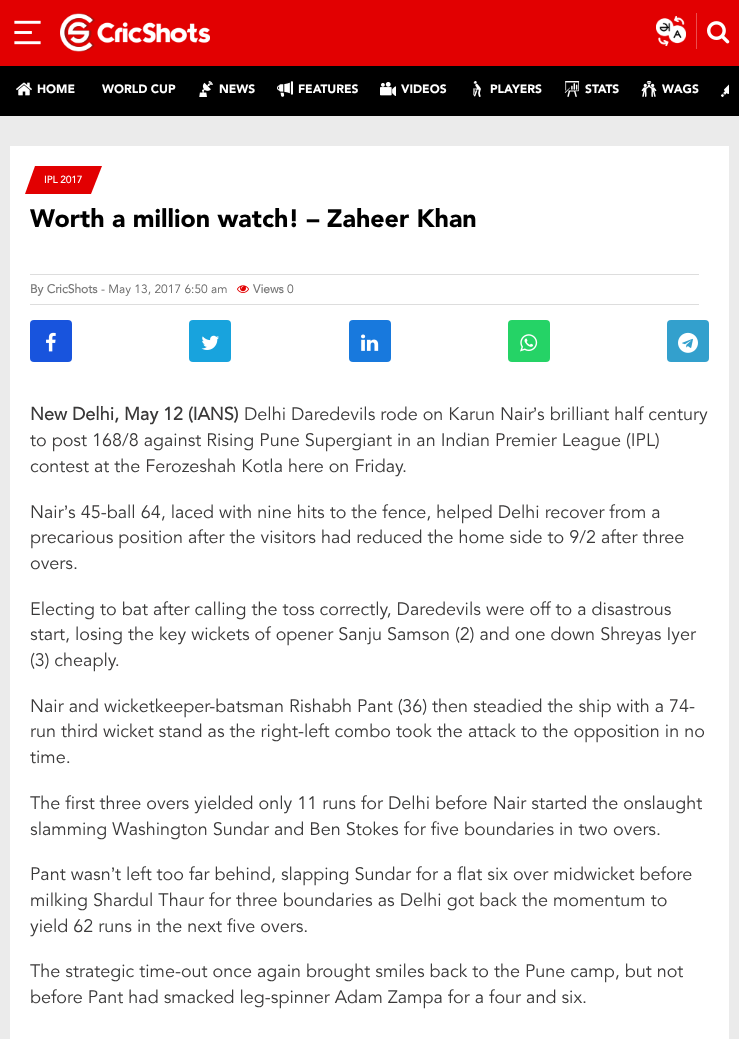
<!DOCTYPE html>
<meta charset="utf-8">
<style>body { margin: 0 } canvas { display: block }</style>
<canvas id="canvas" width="739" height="1039"></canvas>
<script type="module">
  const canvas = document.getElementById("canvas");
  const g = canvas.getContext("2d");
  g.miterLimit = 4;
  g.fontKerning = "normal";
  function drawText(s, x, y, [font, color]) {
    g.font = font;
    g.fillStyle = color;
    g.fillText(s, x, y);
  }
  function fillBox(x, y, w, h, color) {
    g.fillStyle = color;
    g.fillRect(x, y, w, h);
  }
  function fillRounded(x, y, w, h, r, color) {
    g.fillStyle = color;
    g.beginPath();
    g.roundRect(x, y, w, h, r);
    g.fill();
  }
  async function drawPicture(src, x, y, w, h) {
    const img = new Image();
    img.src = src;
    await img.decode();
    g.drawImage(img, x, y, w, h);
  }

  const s1 = ["900 12px Avenir", "#FFFFFF"];
  const s2 = ["bold 10px Avenir", "#FFFFFF"];
  const s3 = ["900 25px Avenir", "#000000"];
  const s4 = ["bold 12px Avenir", "#797979"];
  const s5 = ["12px Avenir", "#636363"];
  const s6 = ["bold 18px Avenir", "#3A3939"];
  const s7 = ["18px Avenir", "#3A3939"];
  const s8 = ["18px Liberation Sans", "#3A3939"];

  fillBox(0, 0, 739, 1039, "#EBEBEB");
  fillBox(0, 0, 739, 66, "#E20001");
  await drawPicture("pic1.png", 14, 20, 27, 25);
  await drawPicture("pic2.png", 60, 13, 150, 39);
  fillBox(696, 13, 1, 36, "#EB4D4D");
  await drawPicture("pic3.png", 656, 16, 30, 30);
  await drawPicture("pic4.png", 707, 21, 23, 23);
  fillBox(0, 66, 739, 50, "#000000");
  await drawPicture("pic5.png", 16, 82, 16, 14);
  drawText("HOME", 37, 93, s1);
  drawText("WORLD CUP", 102, 93, s1);
  await drawPicture("pic6.png", 199, 81, 14, 16);
  drawText("NEWS", 219, 93, s1);
  await drawPicture("pic7.png", 277, 81, 16, 16);
  drawText("FEATURES", 298, 93, s1);
  await drawPicture("pic8.png", 380, 82, 16, 14);
  drawText("VIDEOS", 401, 93, s1);
  await drawPicture("pic9.png", 473, 81, 8, 16);
  drawText("PLAYERS", 490, 93, s1);
  await drawPicture("pic10.png", 564, 81, 16, 16);
  drawText("STATS", 585, 93, s1);
  await drawPicture("pic11.png", 641, 81, 16, 16);
  drawText("WAGS", 662, 93, s1);
  await drawPicture("pic12.png", 721, 84, 8, 13);
  fillBox(10, 146, 719, 893, "#FFFFFF");
  g.fillStyle = "#E20001";
  g.beginPath();
  g.moveTo(35, 166);
  g.lineTo(102, 166);
  g.lineTo(91, 194);
  g.lineTo(25, 194);
  g.closePath();
  g.fill();
  drawText("IPL 2017", 44, 183, s2);
  drawText("Worth a million watch! – Zaheer Khan", 30, 227, s3);
  fillBox(30, 274, 669, 1, "#DDDDDD");
  fillBox(30, 304, 669, 1, "#DDDDDD");
  drawText("By CricShots", 30, 293, s4);
  drawText("- May 13, 2017 6:50 am", 101, 293, s5);
  await drawPicture("pic13.png", 237, 285, 12, 8);
  drawText("Views", 253, 293, s4);
  drawText("0", 287, 293, s5);
  fillRounded(30, 320, 42, 42, 4, "#1854DD");
  await drawPicture("pic14.png", 46, 332, 10, 20);
  fillRounded(189, 320, 42, 42, 4, "#18A3DD");
  await drawPicture("pic15.png", 201, 335, 18, 15);
  fillRounded(349, 320, 42, 42, 4, "#1879DD");
  await drawPicture("pic16.png", 361, 334, 18, 17);
  fillRounded(508, 320, 42, 42, 4, "#25D366");
  await drawPicture("pic17.png", 520, 334, 18, 18);
  fillRounded(667, 320, 42, 42, 4, "#33A0CD");
  await drawPicture("pic18.png", 678, 332, 20, 21);
  drawText("New Delhi, May 12 (IANS)", 30, 420, s6);
  drawText("Delhi Daredevils rode on Karun Nair", 244, 420, s7);
  drawText("’", 533, 420, s8);
  drawText("s brilliant half century", 537, 420, s7);
  drawText("to post 168/8 against Rising Pune Supergiant in an Indian Premier League (IPL)", 30, 446, s7);
  drawText("contest at the Ferozeshah Kotla here on Friday.", 30, 472, s7);
  drawText("Nair", 30, 518, s7);
  drawText("’", 64, 518, s8);
  drawText("s 45-ball 64, laced with nine hits to the fence, helped Delhi recover from a", 68, 518, s7);
  drawText("precarious position after the visitors had reduced the home side to 9/2 after three", 30, 543, s7);
  drawText("overs.", 30, 569, s7);
  drawText("Electing to bat after calling the toss correctly, Daredevils were off to a disastrous", 30, 615, s7);
  drawText("start, losing the key wickets of opener Sanju Samson (2) and one down Shreyas Iyer", 30, 640, s7);
  drawText("(3) cheaply.", 30, 666, s7);
  drawText("Nair and wicketkeeper-batsman Rishabh Pant (36) then steadied the ship with a 74-", 30, 712, s7);
  drawText("run third wicket stand as the right-left combo took the attack to the opposition in no", 30, 737, s7);
  drawText("time.", 30, 763, s7);
  drawText("The first three overs yielded only 11 runs for Delhi before Nair started the onslaught", 30, 809, s7);
  drawText("slamming Washington Sundar and Ben Stokes for five boundaries in two overs.", 30, 835, s7);
  drawText("Pant wasn", 30, 880, s7);
  drawText("’", 111, 880, s8);
  drawText("t left too far behind, slapping Sundar for a flat six over midwicket before", 115, 880, s7);
  drawText("milking Shardul Thaur for three boundaries as Delhi got back the momentum to", 30, 906, s7);
  drawText("yield 62 runs in the next five overs.", 30, 932, s7);
  drawText("The strategic time-out once again brought smiles back to the Pune camp, but not", 30, 977, s7);
  drawText("before Pant had smacked leg-spinner Adam Zampa for a four and six.", 30, 1003, s7);
</script>
